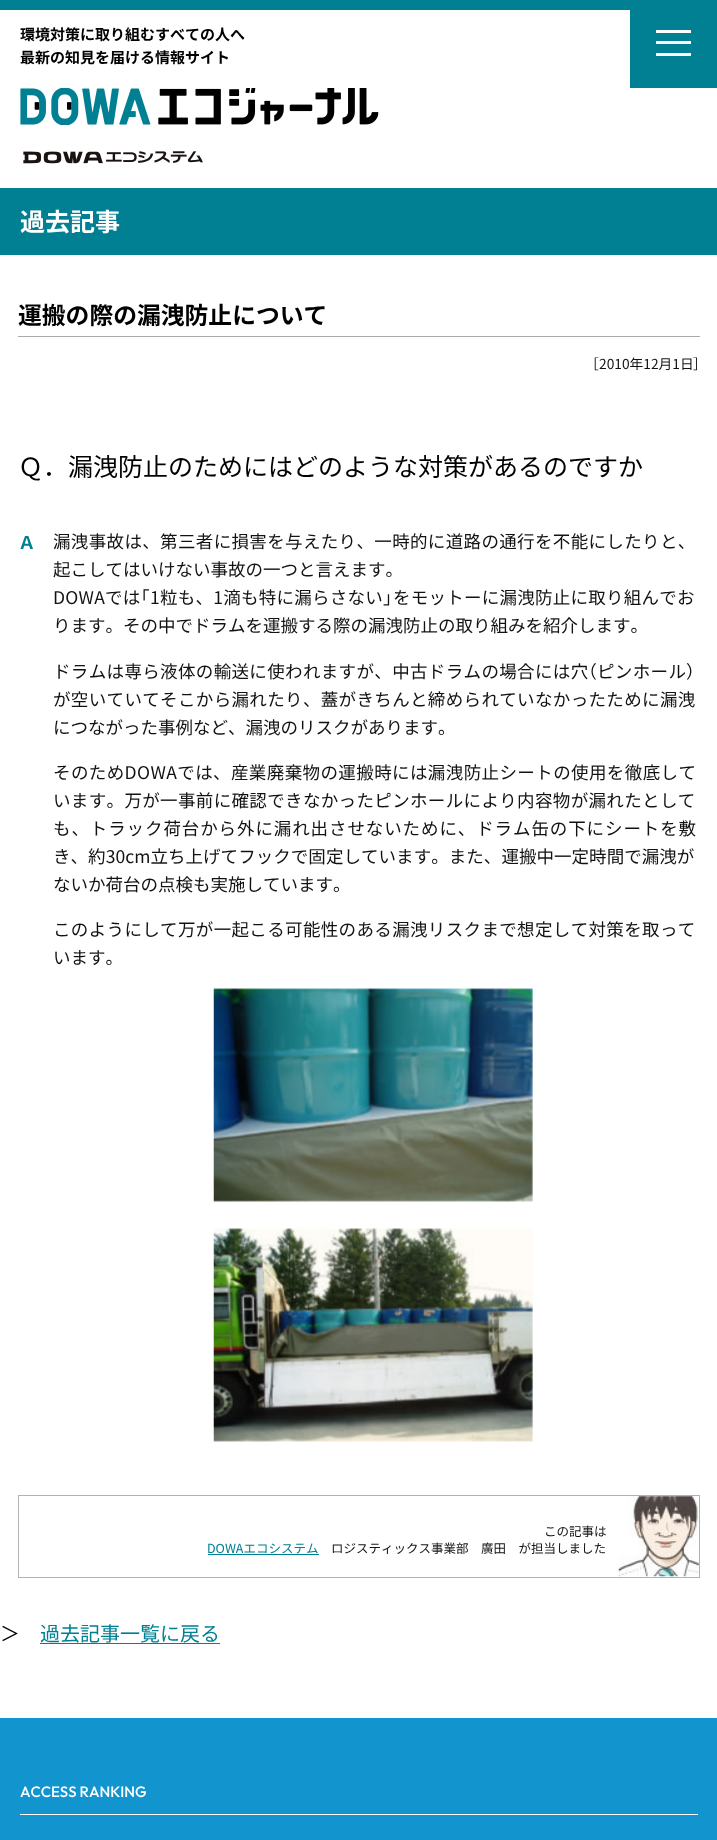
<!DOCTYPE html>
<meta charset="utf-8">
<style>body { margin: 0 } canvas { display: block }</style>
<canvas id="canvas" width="717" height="1840"></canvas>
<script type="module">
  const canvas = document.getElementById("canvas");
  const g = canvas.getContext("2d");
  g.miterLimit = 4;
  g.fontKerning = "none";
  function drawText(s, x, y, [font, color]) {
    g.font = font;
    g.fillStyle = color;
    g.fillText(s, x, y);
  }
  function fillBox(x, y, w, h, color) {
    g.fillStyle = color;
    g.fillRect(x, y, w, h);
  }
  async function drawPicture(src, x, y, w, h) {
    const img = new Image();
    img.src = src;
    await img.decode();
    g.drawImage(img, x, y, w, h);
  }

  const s1 = ["bold 15px Noto Sans JP", "#000000"];
  const s2 = ["bold 25px Noto Sans JP", "#FFFFFF"];
  const s3 = ["bold 23.8px Noto Sans JP", "#000000"];
  const s4 = ["13.75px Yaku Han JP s", "#121212"];
  const s5 = ["13.75px Noto Sans JP", "#121212"];
  const s6 = ["25px Noto Sans JP", "#000000"];
  const s7 = ["bold 17.5px Noto Sans JP", "#008092"];
  const s8 = ["17.5px Noto Sans JP", "#121212"];
  const s9 = ["17.5px Yaku Han JP s", "#121212"];
  const s10 = ["12.5px Noto Sans JP", "#121212"];
  const s11 = ["12.5px Noto Sans JP", "#008092"];
  const s12 = ["20px Noto Sans JP", "#000000"];
  const s13 = ["20px Noto Sans JP", "#008092"];
  const s14 = ["500 15px Outfit", "#FFFFFF"];

  fillBox(0, 0, 717, 1840, "#FFFFFF");
  fillBox(0, 0, 630, 10, "#008092");
  drawText("環境対策に取り組むすべての人へ", 20, 40, s1);
  drawText("最新の知見を届ける情報サイト", 20, 63, s1);
  await drawPicture("pic1.png", 20, 88, 359, 37);
  await drawPicture("pic2.png", 23, 151, 180, 13);
  fillBox(630, 0, 87, 88, "#008092");
  fillBox(656, 30, 35, 3, "#FFFFFF");
  fillBox(656, 41, 35, 3, "#FFFFFF");
  fillBox(656, 53, 35, 3, "#FFFFFF");
  fillBox(0, 188, 717, 67, "#008092");
  drawText("過去記事", 20, 231, s2);
  fillBox(18, 336, 682, 1, "#AAAAAA");
  drawText("運搬の際の漏洩防止について", 18, 324, s3);
  drawText("［", 592, 369, s4);
  drawText("2010年12月1日", 599, 369, s5);
  drawText("］", 693, 369, s4);
  drawText("Ｑ．漏洩防止のためにはどのような対策があるのですか", 18, 476, s6);
  drawText("Ａ", 18, 549, s7);
  g.letterSpacing = "0.35px";
  drawText("漏洩事故は、第三者に損害を与えたり、一時的に道路の通行を不能にしたりと、", 53, 548, s8);
  g.letterSpacing = "0px";
  drawText("起こしてはいけない事故の一つと言えます。", 53, 576, s8);
  g.letterSpacing = "0.25px";
  drawText("DOWAでは", 53, 604, s8);
  drawText("「", 140, 604, s9);
  drawText("1粒も、1滴も特に漏らさない", 150, 604, s8);
  drawText("」", 383, 604, s9);
  drawText("をモットーに漏洩防止に取り組んでお", 393, 604, s8);
  g.letterSpacing = "0px";
  drawText("ります。その中でドラムを運搬する際の漏洩防止の取り組みを紹介します。", 53, 632, s8);
  g.letterSpacing = "0.35px";
  drawText("ドラムは専ら液体の輸送に使われますが、中古ドラムの場合には穴", 53, 678, s8);
  drawText("（", 588, 678, s9);
  drawText("ピンホール", 597, 678, s8);
  drawText("）", 686, 678, s9);
  drawText("が空いていてそこから漏れたり、蓋がきちんと締められていなかったために漏洩", 53, 706, s8);
  g.letterSpacing = "0px";
  drawText("につながった事例など、漏洩のリスクがあります。", 53, 734, s8);
  g.letterSpacing = "0.4px";
  drawText("そのためDOWAでは、産業廃棄物の運搬時には漏洩防止シートの使用を徹底して", 53, 779, s8);
  g.letterSpacing = "0.35px";
  drawText("います。万が一事前に確認できなかったピンホールにより内容物が漏れたとして", 53, 807, s8);
  g.letterSpacing = "0.9px";
  drawText("も、トラック荷台から外に漏れ出させないために、ドラム缶の下にシートを敷", 53, 835, s8);
  g.letterSpacing = "0.05px";
  drawText("き、約30cm立ち上げてフックで固定しています。また、運搬中", 53, 863, s8);
  drawText("一定時間で漏洩が", 554, 863, s8);
  g.letterSpacing = "0px";
  drawText("ないか荷台の点検も実施しています。", 53, 891, s8);
  g.letterSpacing = "0.35px";
  drawText("このようにして万が一起こる可能性のある漏洩リスクまで想定して対策を取って", 53, 936, s8);
  g.letterSpacing = "0px";
  drawText("います。", 53, 964, s8);
  await drawPicture("pic3.png", 213, 988, 320, 214);
  await drawPicture("pic4.png", 213, 1228, 320, 214);
  g.strokeStyle = "#B2B2B2";
  g.strokeRect(18.5, 1495.5, 681, 82);
  drawText("この記事は", 544, 1536, s10);
  drawText("DOWAエコシステム", 207, 1553, s11);
  fillBox(208, 1554, 111, 1, "#008092");
  drawText("ロジスティックス事業部　廣田　が担当しました", 331, 1553, s10);
  await drawPicture("pic5.png", 618, 1496, 81, 81);
  drawText("＞", 0, 1641, s12);
  drawText("過去記事一覧に戻る", 40, 1641, s13);
  fillBox(40, 1643, 180, 1, "#008092");
  fillBox(0, 1718, 717, 122, "#1294CE");
  drawText("ACCESS RANKING", 20, 1797, s14);
  fillBox(20, 1814, 678, 1, "#FFFFFF");
</script>
